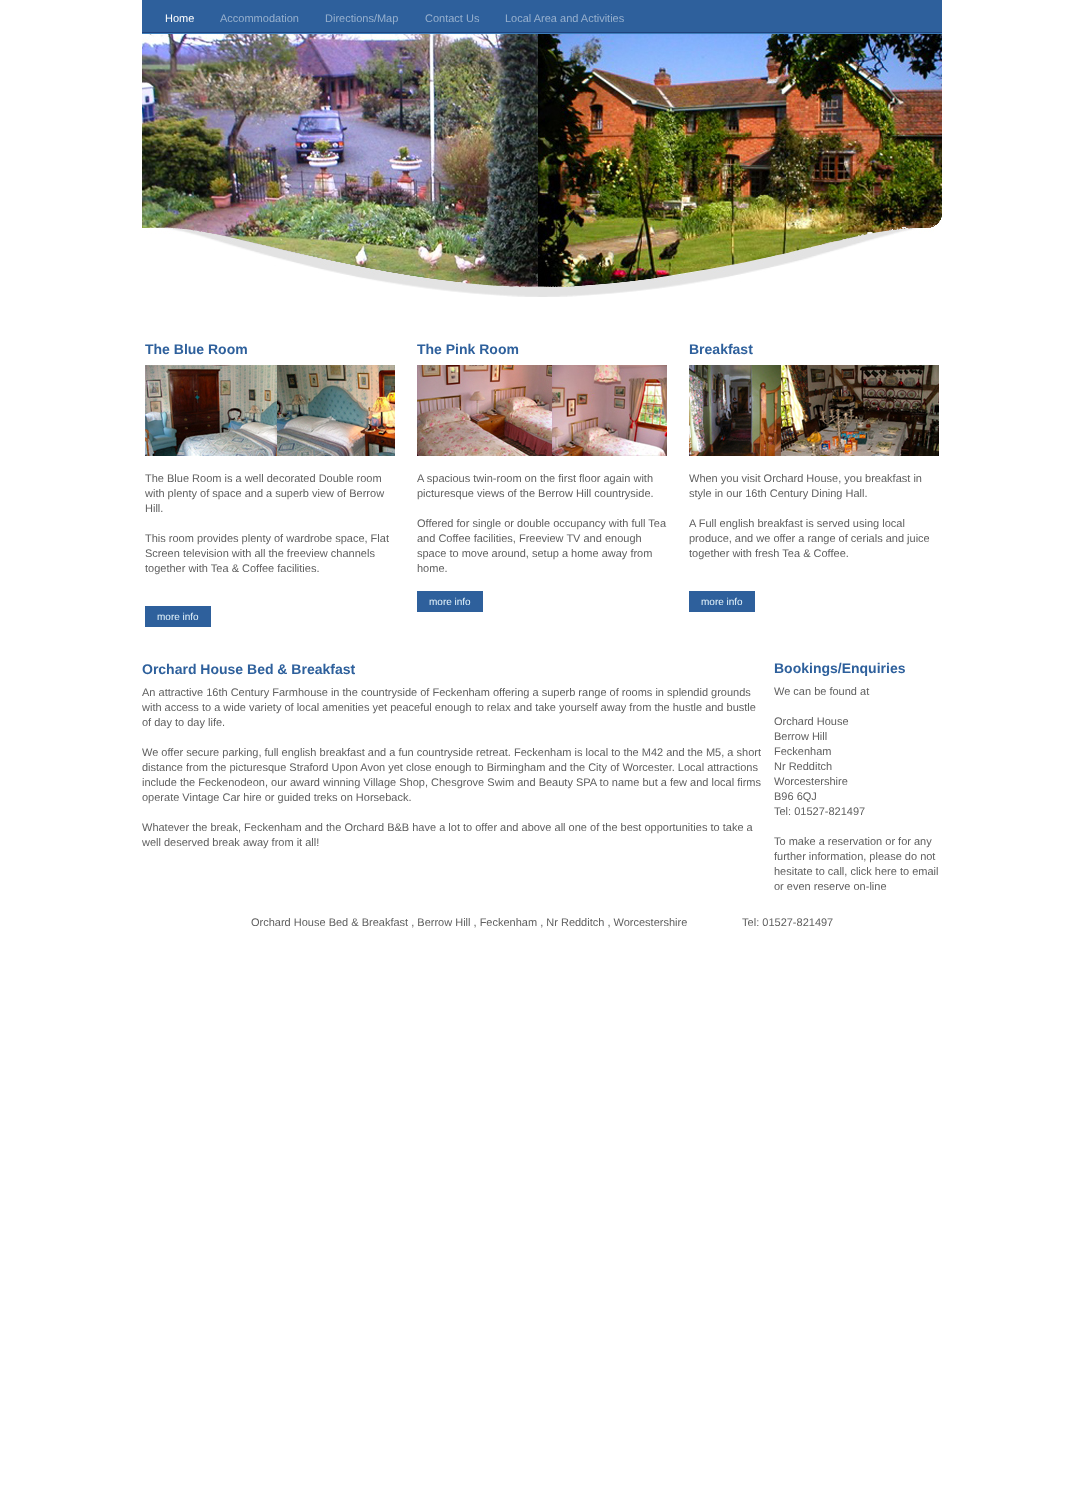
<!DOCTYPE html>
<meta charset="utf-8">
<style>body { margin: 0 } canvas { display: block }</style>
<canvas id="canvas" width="1084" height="1504"></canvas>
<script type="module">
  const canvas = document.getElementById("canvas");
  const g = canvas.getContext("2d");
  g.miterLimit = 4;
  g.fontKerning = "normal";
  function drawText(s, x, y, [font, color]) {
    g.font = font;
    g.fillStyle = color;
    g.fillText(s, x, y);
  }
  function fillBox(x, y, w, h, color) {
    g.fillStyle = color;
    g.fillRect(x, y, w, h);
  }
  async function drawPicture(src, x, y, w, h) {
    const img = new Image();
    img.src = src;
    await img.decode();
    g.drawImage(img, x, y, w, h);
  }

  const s1 = ["11px Liberation Sans", "#FFFFFF"];
  const s2 = ["11px Liberation Sans", "#97B0CE"];
  const s3 = ["bold 14px Liberation Sans", "#2E609C"];
  const s4 = ["11px Liberation Sans", "#606060"];
  const s5 = ["10px Liberation Sans", "#E5F5FD"];

  fillBox(0, 0, 1084, 1504, "#FFFFFF");
  fillBox(142, 0, 800, 32, "#2E609C");
  fillBox(142, 33, 800, 1, "#3C7DBA");
  fillBox(142, 32, 800, 1, "#20437E");
  drawText("Home", 165, 22, s1);
  drawText("Accommodation", 220, 22, s2);
  drawText("Directions/Map", 325, 22, s2);
  drawText("Contact Us", 425, 22, s2);
  drawText("Local Area and Activities", 505, 22, s2);
  await drawPicture("pic1.png", 142, 34, 800, 263);
  drawText("The Blue Room", 145, 354, s3);
  await drawPicture("pic2.png", 145, 365, 250, 91);
  drawText("The Blue Room is a well decorated Double room", 145, 482, s4);
  drawText("with plenty of space and a superb view of Berrow", 145, 497, s4);
  drawText("Hill.", 145, 512, s4);
  drawText("This room provides plenty of wardrobe space, Flat", 145, 542, s4);
  drawText("Screen television with all the freeview channels", 145, 557, s4);
  drawText("together with Tea & Coffee facilities.", 145, 572, s4);
  fillBox(145, 606, 66, 21, "#2E609C");
  drawText("more info", 157, 620, s5);
  drawText("The Pink Room", 417, 354, s3);
  await drawPicture("pic3.png", 417, 365, 250, 91);
  drawText("A spacious twin-room on the first floor again with", 417, 482, s4);
  drawText("picturesque views of the Berrow Hill countryside.", 417, 497, s4);
  drawText("Offered for single or double occupancy with full Tea", 417, 527, s4);
  drawText("and Coffee facilities, Freeview TV and enough", 417, 542, s4);
  drawText("space to move around, setup a home away from", 417, 557, s4);
  drawText("home.", 417, 572, s4);
  fillBox(417, 591, 66, 21, "#2E609C");
  drawText("more info", 429, 605, s5);
  drawText("Breakfast", 689, 354, s3);
  await drawPicture("pic4.png", 689, 365, 250, 91);
  drawText("When you visit Orchard House, you breakfast in", 689, 482, s4);
  drawText("style in our 16th Century Dining Hall.", 689, 497, s4);
  drawText("A Full english breakfast is served using local", 689, 527, s4);
  drawText("produce, and we offer a range of cerials and juice", 689, 542, s4);
  drawText("together with fresh Tea & Coffee.", 689, 557, s4);
  fillBox(689, 591, 66, 21, "#2E609C");
  drawText("more info", 701, 605, s5);
  drawText("Orchard House Bed & Breakfast", 142, 674, s3);
  drawText("An attractive 16th Century Farmhouse in the countryside of Feckenham offering a superb range of rooms in splendid grounds", 142, 696, s4);
  drawText("with access to a wide variety of local amenities yet peaceful enough to relax and take yourself away from the hustle and bustle", 142, 711, s4);
  drawText("of day to day life.", 142, 726, s4);
  drawText("We offer secure parking, full english breakfast and a fun countryside retreat. Feckenham is local to the M42 and the M5, a short", 142, 756, s4);
  drawText("distance from the picturesque Straford Upon Avon yet close enough to Birmingham and the City of Worcester. Local attractions", 142, 771, s4);
  drawText("include the Feckenodeon, our award winning Village Shop, Chesgrove Swim and Beauty SPA to name but a few and local firms", 142, 786, s4);
  drawText("operate Vintage Car hire or guided treks on Horseback.", 142, 801, s4);
  drawText("Whatever the break, Feckenham and the Orchard B&B have a lot to offer and above all one of the best opportunities to take a", 142, 831, s4);
  drawText("well deserved break away from it all!", 142, 846, s4);
  drawText("Bookings/Enquiries", 774, 673, s3);
  drawText("We can be found at", 774, 695, s4);
  drawText("Orchard House", 774, 725, s4);
  drawText("Berrow Hill", 774, 740, s4);
  drawText("Feckenham", 774, 755, s4);
  drawText("Nr Redditch", 774, 770, s4);
  drawText("Worcestershire", 774, 785, s4);
  drawText("B96 6QJ", 774, 800, s4);
  drawText("Tel: 01527-821497", 774, 815, s4);
  drawText("To make a reservation or for any", 774, 845, s4);
  drawText("further information, please do not", 774, 860, s4);
  drawText("hesitate to call, click here to email", 774, 875, s4);
  drawText("or even reserve on-line", 774, 890, s4);
  drawText("Orchard House Bed & Breakfast , Berrow Hill , Feckenham , Nr Redditch , Worcestershire                  Tel: 01527-821497", 251, 926, s4);
</script>
